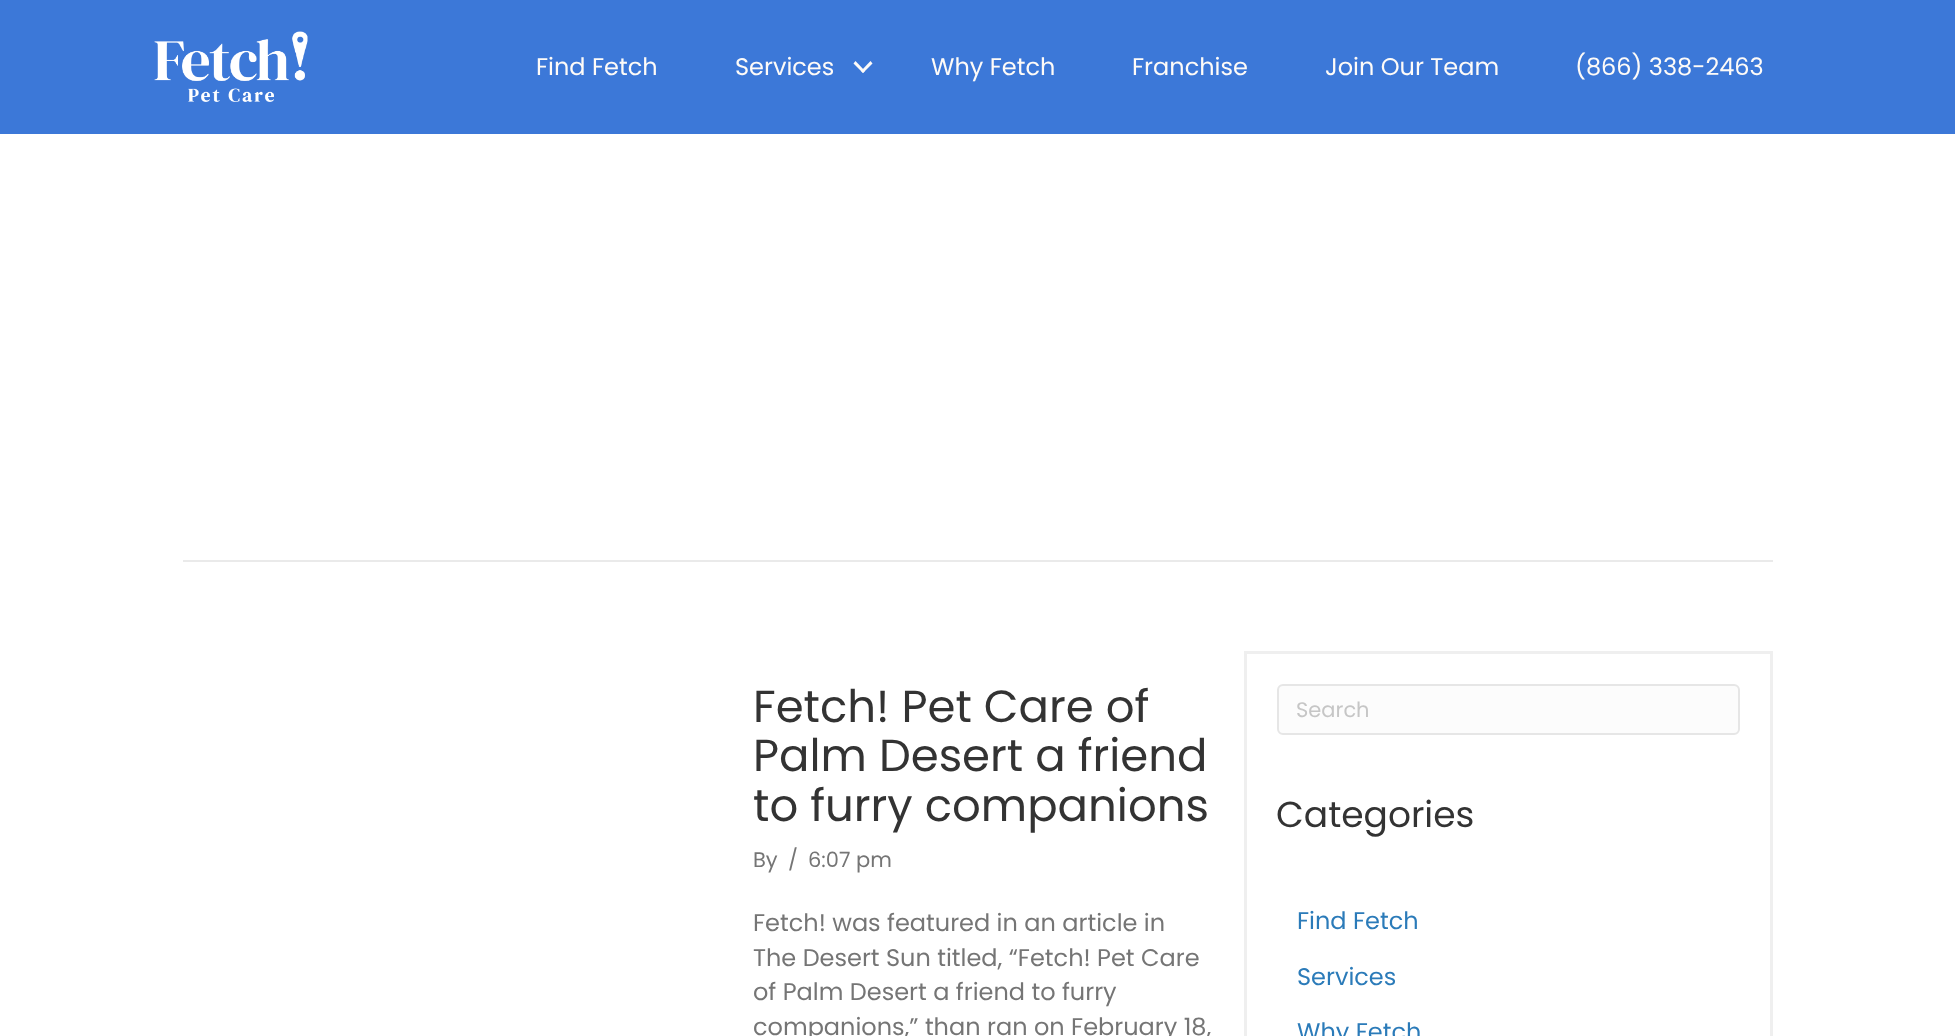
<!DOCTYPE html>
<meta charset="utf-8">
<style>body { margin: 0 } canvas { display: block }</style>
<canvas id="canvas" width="1955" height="1036"></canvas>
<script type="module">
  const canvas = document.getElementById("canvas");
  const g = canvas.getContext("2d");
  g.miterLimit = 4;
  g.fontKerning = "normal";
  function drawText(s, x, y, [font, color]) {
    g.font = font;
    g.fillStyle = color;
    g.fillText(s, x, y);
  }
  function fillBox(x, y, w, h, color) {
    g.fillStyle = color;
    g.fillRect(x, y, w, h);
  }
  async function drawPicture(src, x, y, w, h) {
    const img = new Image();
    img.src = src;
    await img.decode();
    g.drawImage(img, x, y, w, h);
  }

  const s1 = ["24px Poppins", "#FEFBF8"];
  const s2 = ["45px Poppins", "#333333"];
  const s3 = ["21px Poppins", "#757575"];
  const s4 = ["24px Poppins", "#757575"];
  const s5 = ["21px Poppins", "#C6C6C6"];
  const s6 = ["36px Poppins", "#333333"];
  const s7 = ["24px Poppins", "#2B7BB9"];

  fillBox(0, 0, 1955, 1036, "#FFFFFF");
  fillBox(0, 0, 1955, 134, "#3C78D8");
  await drawPicture("pic1.png", 154, 31, 154, 71);
  drawText("Find Fetch", 536, 75, s1);
  drawText("Services", 735, 75, s1);
  g.beginPath();
  g.moveTo(870.5, 61);
  g.lineTo(872.5, 63.5);
  g.lineTo(863, 73);
  g.lineTo(861, 71);
  g.closePath();
  g.fill();
  g.beginPath();
  g.moveTo(855.5, 61);
  g.lineTo(865, 71);
  g.lineTo(863, 73);
  g.lineTo(853.5, 63.5);
  g.closePath();
  g.fill();
  drawText("Why Fetch", 931, 75, s1);
  drawText("Franchise", 1132, 75, s1);
  drawText("Join Our Team", 1325, 75, s1);
  drawText("(866) 338-2463", 1575, 75, s1);
  fillBox(183, 560, 1590, 2, "#EAEAEA");
  drawText("Fetch! Pet Care of", 753, 722, s2);
  drawText("Palm Desert a friend", 753, 771, s2);
  drawText("to furry companions", 753, 821, s2);
  drawText("By", 753, 867, s3);
  drawText("/", 788, 867, s3);
  drawText("6:07 pm", 808, 867, s3);
  drawText("Fetch! was featured in an article in", 753, 931, s4);
  drawText("The Desert Sun titled, “Fetch! Pet Care", 753, 966, s4);
  drawText("of Palm Desert a friend to furry", 753, 1000, s4);
  drawText("companions,” than ran on February 18,", 753, 1035, s4);
  g.strokeStyle = "#EFEFEF";
  g.lineWidth = 3;
  g.strokeRect(1245.5, 652.5, 526, 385);
  g.fillStyle = "#FCFCFC";
  g.beginPath();
  g.roundRect(1278, 685, 461, 49, 5);
  g.fill();
  g.strokeStyle = "#E6E6E6";
  g.lineWidth = 2;
  g.stroke();
  drawText("Search", 1296, 717, s5);
  drawText("Categories", 1276, 827, s6);
  drawText("Find Fetch", 1297, 929, s7);
  drawText("Services", 1297, 985, s7);
  drawText("Why Fetch", 1297, 1040, s7);
</script>
